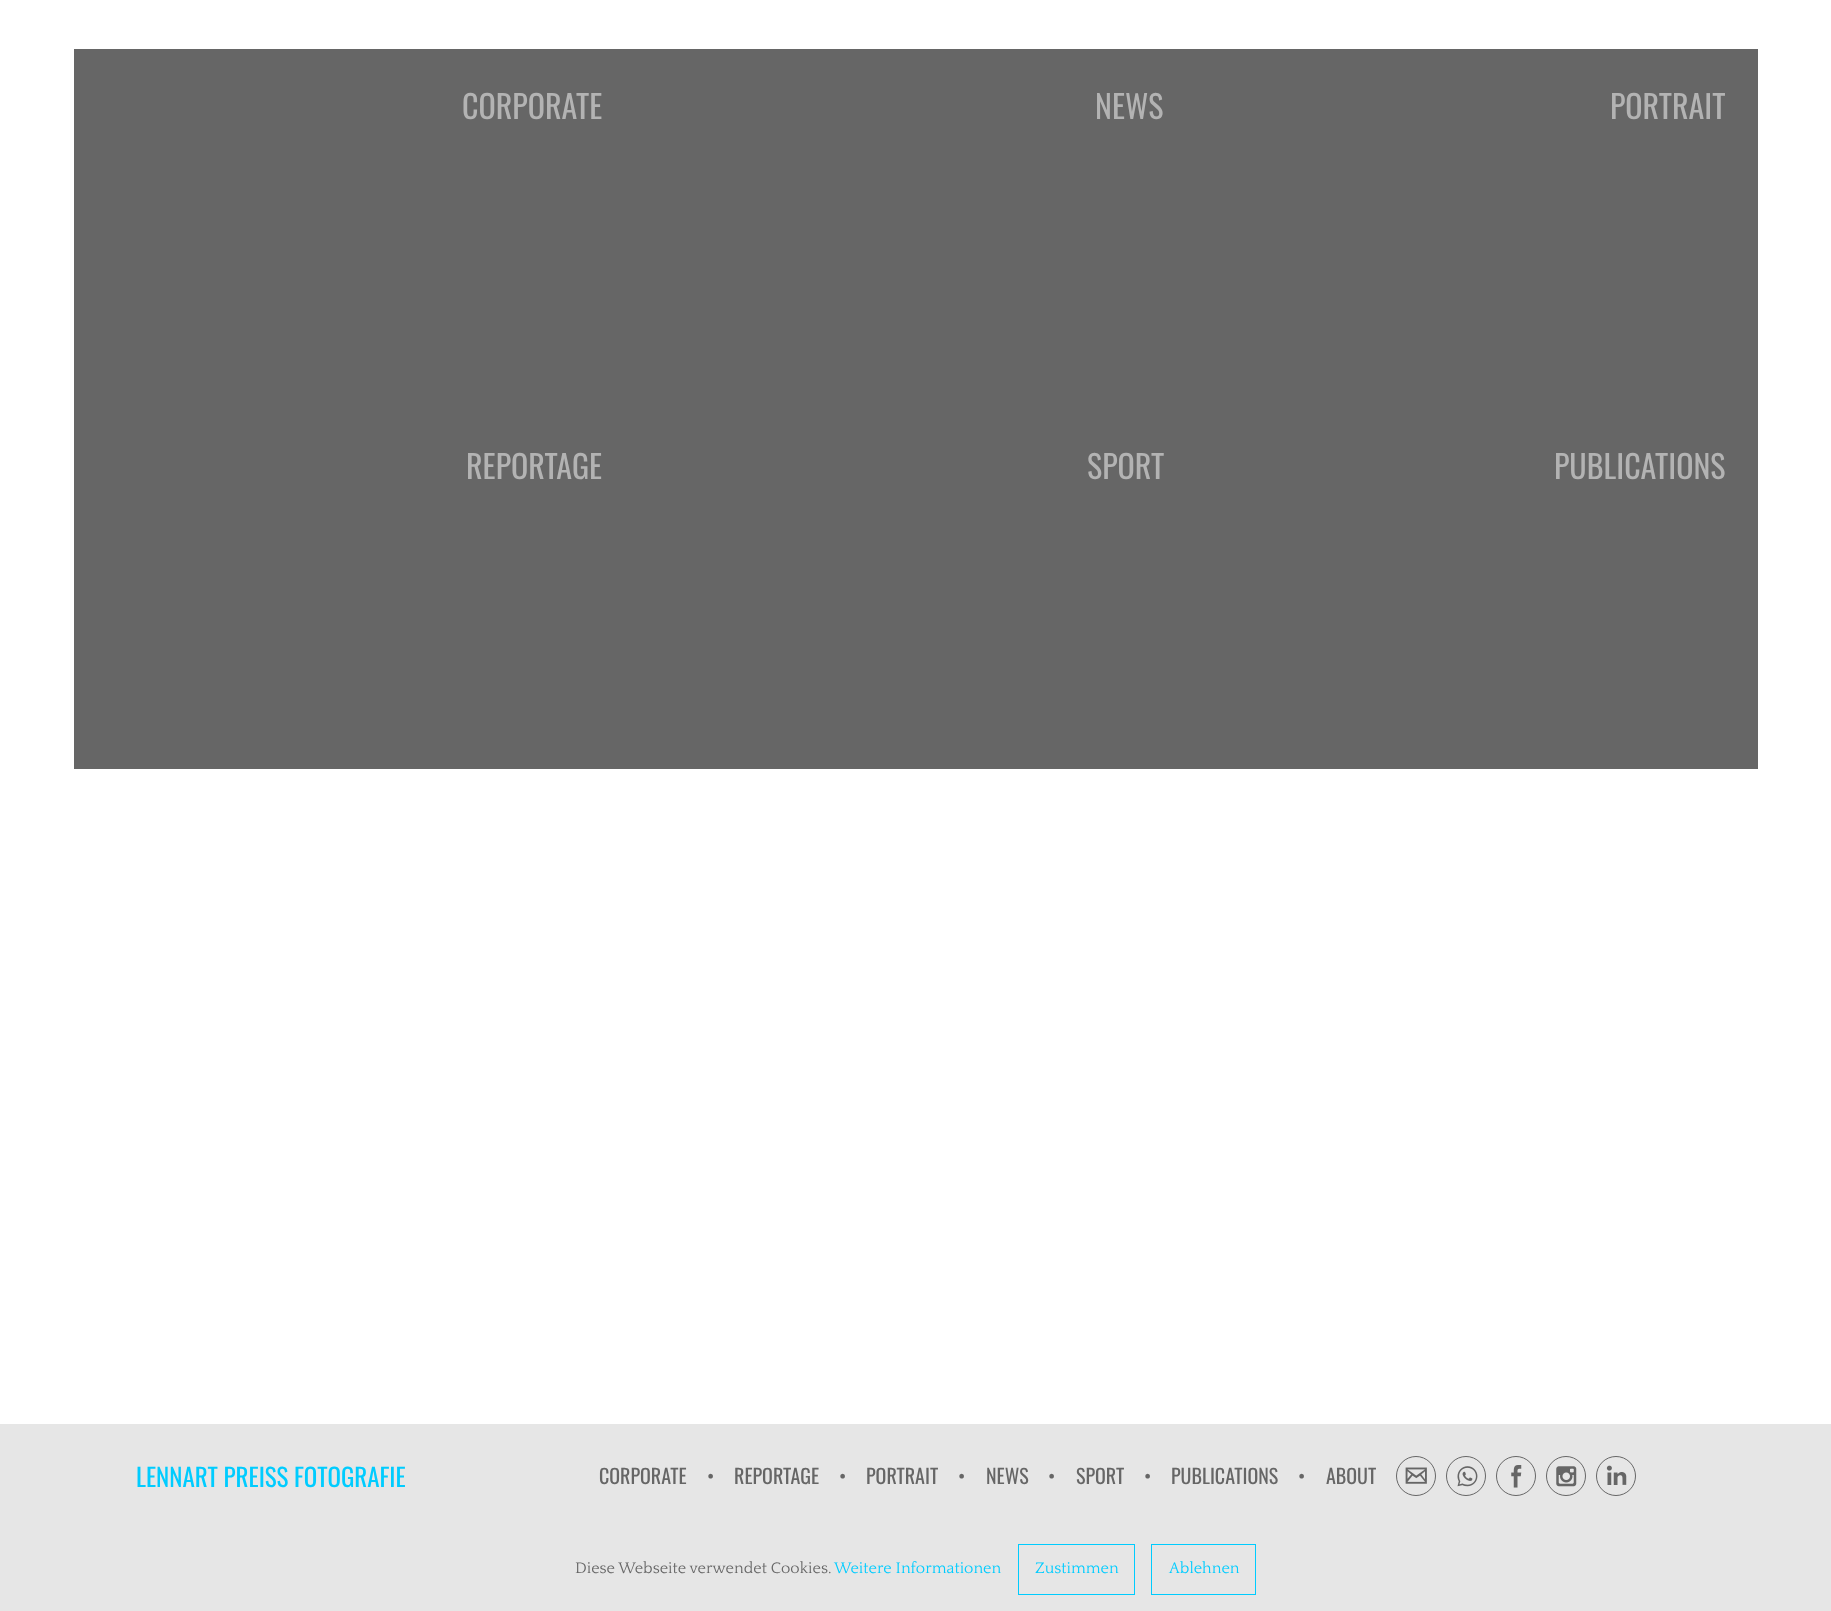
<!DOCTYPE html>
<meta charset="utf-8">
<style>body { margin: 0 } canvas { display: block }</style>
<canvas id="canvas" width="1831" height="1611"></canvas>
<script type="module">
  const canvas = document.getElementById("canvas");
  const g = canvas.getContext("2d");
  g.miterLimit = 4;
  g.fontKerning = "normal";
  function drawText(s, x, y, [font, color]) {
    g.font = font;
    g.fillStyle = color;
    g.fillText(s, x, y);
  }
  function fillBox(x, y, w, h, color) {
    g.fillStyle = color;
    g.fillRect(x, y, w, h);
  }
  async function drawPicture(src, x, y, w, h) {
    const img = new Image();
    img.src = src;
    await img.decode();
    g.drawImage(img, x, y, w, h);
  }

  const s1 = ["32px Oswald", "#B3B3B3"];
  const s2 = ["25px Oswald", "#00CCFF"];
  const s3 = ["20px Oswald", "#666666"];
  const s4 = ["16px Quattrocento", "#666666"];
  const s5 = ["16px Quattrocento", "#00CCFF"];

  fillBox(0, 0, 1831, 1611, "#FFFFFF");
  fillBox(74, 49, 1684, 360, "#666666");
  drawText("CORPORATE", 462, 119, s1);
  drawText("NEWS", 1095, 119, s1);
  drawText("PORTRAIT", 1610, 119, s1);
  fillBox(74, 409, 1684, 360, "#666666");
  drawText("REPORTAGE", 466, 479, s1);
  drawText("SPORT", 1087, 479, s1);
  drawText("PUBLICATIONS", 1554, 479, s1);
  fillBox(0, 1424, 1831, 187, "#E6E6E6");
  drawText("LENNART PREISS FOTOGRAFIE", 136, 1487, s2);
  drawText("CORPORATE", 599, 1484, s3);
  drawText("•", 707, 1484, s3);
  drawText("REPORTAGE", 734, 1484, s3);
  drawText("•", 839, 1484, s3);
  drawText("PORTRAIT", 866, 1484, s3);
  drawText("•", 958, 1484, s3);
  drawText("NEWS", 986, 1484, s3);
  drawText("•", 1048, 1484, s3);
  drawText("SPORT", 1076, 1484, s3);
  drawText("•", 1144, 1484, s3);
  drawText("PUBLICATIONS", 1171, 1484, s3);
  drawText("•", 1298, 1484, s3);
  drawText("ABOUT", 1326, 1484, s3);
  g.beginPath();
  g.arc(1416, 1476, 19.5, 0, Math.PI * 2);
  g.strokeStyle = "#666666";
  g.stroke();
  await drawPicture("pic1.png", 1405, 1467, 22, 17);
  g.beginPath();
  g.arc(1466, 1476, 19.5, 0, Math.PI * 2);
  g.stroke();
  await drawPicture("pic2.png", 1457, 1466, 21, 21);
  g.beginPath();
  g.arc(1516, 1476, 19.5, 0, Math.PI * 2);
  g.stroke();
  await drawPicture("pic3.png", 1511, 1465, 11, 23);
  g.beginPath();
  g.arc(1566, 1476, 19.5, 0, Math.PI * 2);
  g.stroke();
  await drawPicture("pic4.png", 1556, 1466, 21, 21);
  g.beginPath();
  g.arc(1616, 1476, 19.5, 0, Math.PI * 2);
  g.stroke();
  await drawPicture("pic5.png", 1606, 1465, 21, 20);
  drawText("Diese Webseite verwendet Cookies.", 575, 1573, s4);
  drawText("Weitere Informationen", 834, 1573, s5);
  g.strokeStyle = "#00CCFF";
  g.strokeRect(1018.5, 1544.5, 116, 50);
  drawText("Zustimmen", 1035, 1573, s5);
  g.strokeRect(1151.5, 1544.5, 104, 50);
  drawText("Ablehnen", 1169, 1573, s5);
</script>
